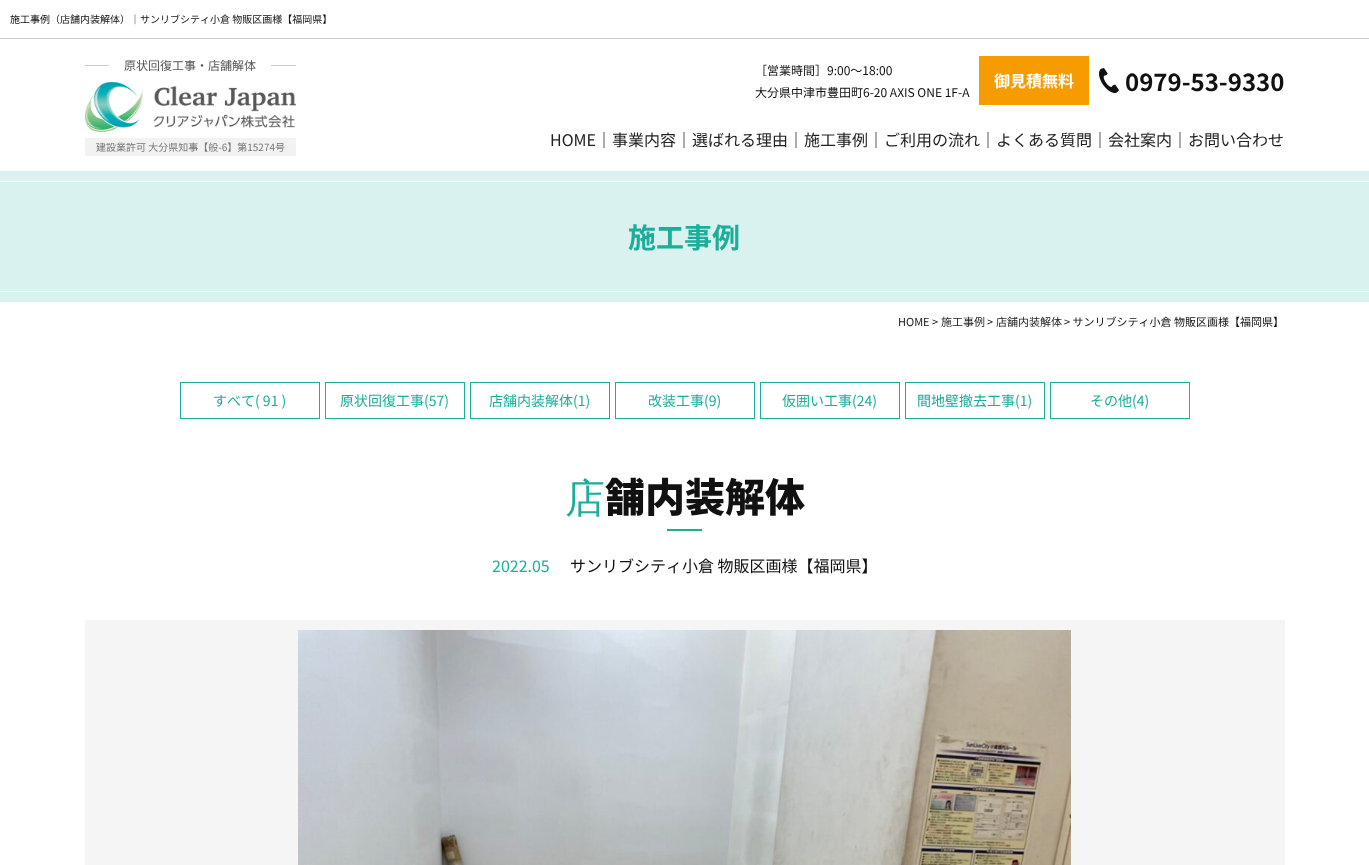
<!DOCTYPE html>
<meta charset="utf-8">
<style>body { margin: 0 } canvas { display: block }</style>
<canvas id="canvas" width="1369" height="865"></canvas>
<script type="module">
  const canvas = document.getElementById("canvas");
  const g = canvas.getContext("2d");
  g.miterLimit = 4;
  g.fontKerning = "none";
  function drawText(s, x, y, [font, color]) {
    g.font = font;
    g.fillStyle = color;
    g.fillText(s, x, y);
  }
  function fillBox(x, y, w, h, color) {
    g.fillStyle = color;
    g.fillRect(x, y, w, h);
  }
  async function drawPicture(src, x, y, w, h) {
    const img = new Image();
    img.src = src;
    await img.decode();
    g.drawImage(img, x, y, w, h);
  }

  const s1 = ["10px Noto Sans JP", "#111111"];
  const s2 = ["12px Noto Sans JP", "#595656"];
  const s3 = ["10px Noto Sans JP", "#777777"];
  const s4 = ["12px Noto Sans JP", "#111111"];
  const s5 = ["bold 16px Noto Sans JP", "#FFFFFF"];
  const s6 = ["bold 24px Noto Sans JP", "#111111"];
  const s7 = ["16px Noto Sans JP", "#222222"];
  const s8 = ["16px Noto Sans JP", "#111111"];
  const s9 = ["bold 28px Noto Sans JP", "#1CAE9B"];
  const s10 = ["11px Noto Sans JP", "#222222"];
  const s11 = ["11px Noto Sans JP", "#111111"];
  const s12 = ["14px Noto Sans JP", "#1CAE9B"];
  const s13 = ["100 40px Noto Sans", "#1CAE9B"];
  const s14 = ["900 40px Noto Sans JP", "#111111"];
  const s15 = ["16px Noto Sans JP", "#1CAE9B"];

  fillBox(0, 0, 1369, 865, "#FFFFFF");
  fillBox(0, 38, 1369, 1, "#CCCCCC");
  drawText("施工事例（店舗内装解体）｜サンリブシティ小倉 物販区画様【福岡県】", 10, 23, s1);
  fillBox(85, 65, 24, 1, "#CCCCCC");
  drawText("原状回復工事・店舗解体", 124, 70, s2);
  fillBox(271, 65, 25, 1, "#CCCCCC");
  await drawPicture("pic1.png", 85, 82, 211, 50);
  fillBox(85, 138, 211, 18, "#F2F2F2");
  drawText("建設業許可 大分県知事【般-6】第15274号", 96, 151, s3);
  drawText("［営業時間］9:00～18:00", 755, 75, s4);
  drawText("大分県中津市豊田町6-20 AXIS ONE 1F-A", 755, 97, s4);
  fillBox(979, 56, 110, 49, "#F79C00");
  drawText("御見積無料", 994, 87, s5);
  await drawPicture("pic2.png", 1099, 68, 20, 25);
  drawText("0979-53-9330", 1125, 91, s6);
  drawText("HOME", 550, 146, s7);
  drawText("｜", 596, 146, s8);
  drawText("事業内容", 612, 146, s7);
  drawText("｜", 676, 146, s8);
  drawText("選ばれる理由", 692, 146, s7);
  drawText("｜", 788, 146, s8);
  drawText("施工事例", 804, 146, s7);
  drawText("｜", 868, 146, s8);
  drawText("ご利用の流れ", 884, 146, s7);
  drawText("｜", 980, 146, s8);
  drawText("よくある質問", 996, 146, s7);
  drawText("｜", 1092, 146, s8);
  drawText("会社案内", 1108, 146, s7);
  drawText("｜", 1172, 146, s8);
  drawText("お問い合わせ", 1188, 146, s7);
  fillBox(0, 171, 1369, 131, "#D9F2EF");
  fillBox(0, 181, 1369, 1, "#FFFFFF");
  drawText("施工事例", 628, 248, s9);
  fillBox(0, 291, 1369, 1, "#FFFFFF");
  drawText("HOME", 898, 326, s10);
  drawText(">", 932, 326, s11);
  drawText("施工事例", 941, 326, s10);
  drawText(">", 987, 326, s11);
  drawText("店舗内装解体", 996, 326, s10);
  drawText("> サンリブシティ小倉 物販区画様【福岡県】", 1064, 326, s11);
  g.strokeStyle = "#1CAE9B";
  g.strokeRect(180.5, 382.5, 139, 36);
  drawText("すべて( 91 )", 213, 406, s12);
  g.strokeRect(325.5, 382.5, 139, 36);
  drawText("原状回復工事(57)", 340, 406, s12);
  g.strokeRect(470.5, 382.5, 139, 36);
  drawText("店舗内装解体(1)", 489, 406, s12);
  g.strokeRect(615.5, 382.5, 139, 36);
  drawText("改装工事(9)", 648, 406, s12);
  g.strokeRect(760.5, 382.5, 139, 36);
  drawText("仮囲い工事(24)", 782, 406, s12);
  g.strokeRect(905.5, 382.5, 139, 36);
  drawText("間地壁撤去工事(1)", 917, 406, s12);
  g.strokeRect(1050.5, 382.5, 139, 36);
  drawText("その他(4)", 1090, 406, s12);
  drawText("店", 565, 512, s13);
  drawText("舗内装解体", 605, 512, s14);
  fillBox(667, 529, 35, 2, "#1CAE9B");
  drawText("2022.05", 492, 572, s15);
  drawText("サンリブシティ小倉 物販区画様【福岡県】", 570, 572, s8);
  fillBox(85, 620, 1200, 245, "#F5F5F5");
  await drawPicture("pic3.png", 298, 630, 773, 235);
</script>
